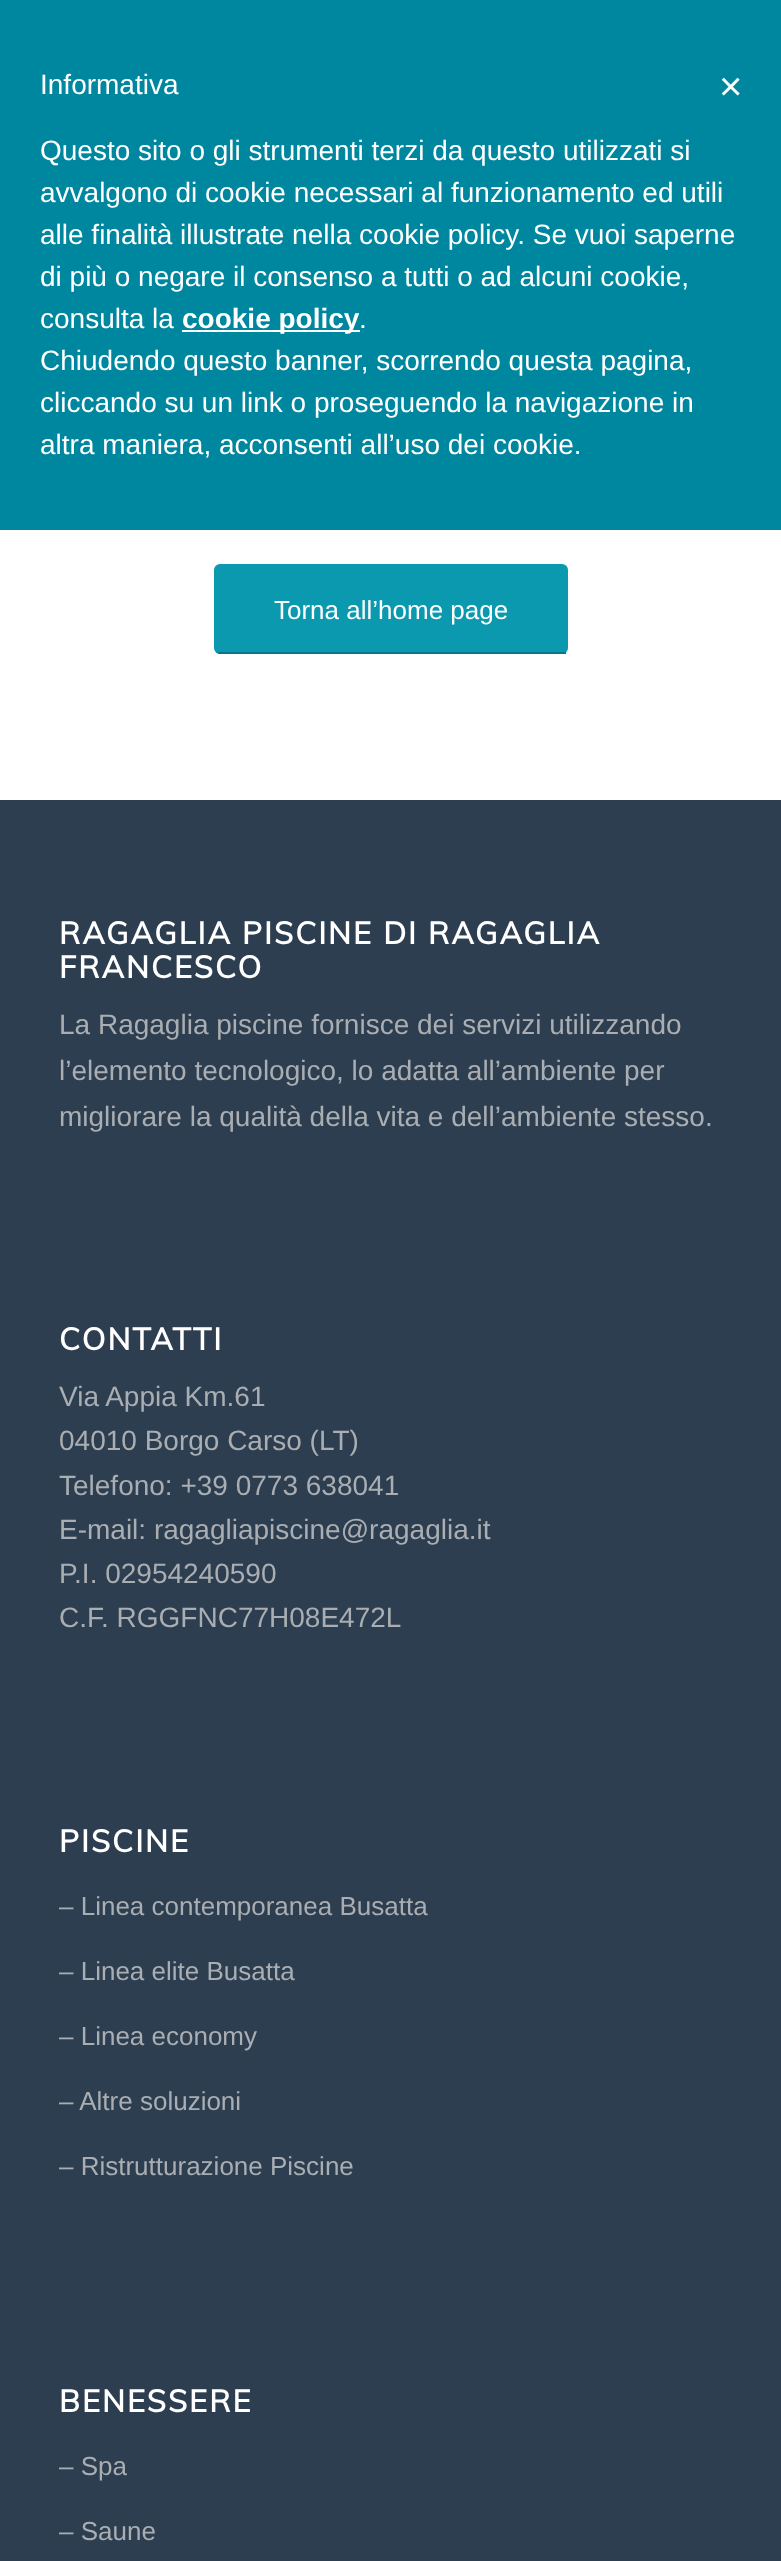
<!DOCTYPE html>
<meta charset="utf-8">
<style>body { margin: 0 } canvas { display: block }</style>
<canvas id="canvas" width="781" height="2561"></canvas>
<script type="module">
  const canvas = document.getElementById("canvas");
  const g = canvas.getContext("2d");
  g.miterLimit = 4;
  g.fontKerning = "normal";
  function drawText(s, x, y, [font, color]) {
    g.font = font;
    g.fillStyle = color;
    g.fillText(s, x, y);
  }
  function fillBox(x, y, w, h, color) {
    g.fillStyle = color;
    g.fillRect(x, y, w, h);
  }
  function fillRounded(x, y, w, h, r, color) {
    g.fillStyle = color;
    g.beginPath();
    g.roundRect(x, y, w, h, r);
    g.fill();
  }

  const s1 = ["28px Liberation Sans", "#FFFFFF"];
  const s2 = ["bold 28px Liberation Sans", "#FFFFFF"];
  const s3 = ["40px Liberation Sans", "#FFFFFF"];
  const s4 = ["26px Liberation Sans", "#FFFFFF"];
  const s5 = ["bold 30.75px Muli", "#FFFFFF"];
  const s6 = ["28px Liberation Sans", "#AAAEB2"];
  const s7 = ["26px Liberation Sans", "#AAAEB2"];

  fillBox(0, 0, 781, 2561, "#FFFFFF");
  fillBox(0, 0, 781, 530, "#0087A0");
  drawText("Informativa", 40, 94, s1);
  drawText("Questo sito o gli strumenti terzi da questo utilizzati si", 40, 160, s1);
  drawText("avvalgono di cookie necessari al funzionamento ed utili", 40, 202, s1);
  drawText("alle finalità illustrate nella cookie policy. Se vuoi saperne", 40, 244, s1);
  drawText("di più o negare il consenso a tutti o ad alcuni cookie,", 40, 286, s1);
  drawText("consulta la", 40, 328, s1);
  fillBox(182, 330, 178, 2, "#FFFFFF");
  drawText("cookie policy", 182, 328, s2);
  drawText(".", 359, 328, s1);
  drawText("Chiudendo questo banner, scorrendo questa pagina,", 40, 370, s1);
  drawText("cliccando su un link o proseguendo la navigazione in", 40, 412, s1);
  drawText("altra maniera, acconsenti all’uso dei cookie.", 40, 454, s1);
  drawText("×", 719, 100, s3);
  fillRounded(214, 564, 354, 90, 6, "#0A99AF");
  fillBox(218, 652, 348, 2, "#08778D");
  drawText("Torna all’home page", 274, 619, s4);
  fillBox(0, 800, 781, 1761, "#2C3E50");
  g.letterSpacing = "2px";
  drawText("RAGAGLIA PISCINE DI RAGAGLIA", 59, 944, s5);
  drawText("FRANCESCO", 59, 978, s5);
  g.letterSpacing = "0px";
  drawText("La Ragaglia piscine fornisce dei servizi utilizzando", 59, 1034, s6);
  drawText("l’elemento tecnologico, lo adatta all’ambiente per", 59, 1080, s6);
  drawText("migliorare la qualità della vita e dell’ambiente stesso.", 59, 1126, s6);
  g.letterSpacing = "2px";
  drawText("CONTATTI", 59, 1350, s5);
  g.letterSpacing = "0px";
  drawText("Via Appia Km.61", 59, 1406, s6);
  drawText("04010 Borgo Carso (LT)", 59, 1450, s6);
  drawText("Telefono: +39 0773 638041", 59, 1495, s6);
  drawText("E-mail: ragagliapiscine@ragaglia.it", 59, 1539, s6);
  drawText("P.I. 02954240590", 59, 1583, s6);
  drawText("C.F. RGGFNC77H08E472L", 59, 1627, s6);
  g.letterSpacing = "2px";
  drawText("PISCINE", 59, 1852, s5);
  g.letterSpacing = "0px";
  drawText("– Linea contemporanea Busatta", 59, 1915, s7);
  drawText("– Linea elite Busatta", 59, 1980, s7);
  drawText("– Linea economy", 59, 2045, s7);
  drawText("– Altre soluzioni", 59, 2110, s7);
  drawText("– Ristrutturazione Piscine", 59, 2175, s7);
  g.letterSpacing = "2px";
  drawText("BENESSERE", 59, 2412, s5);
  g.letterSpacing = "0px";
  drawText("– Spa", 59, 2475, s7);
  drawText("– Saune", 59, 2540, s7);
</script>
